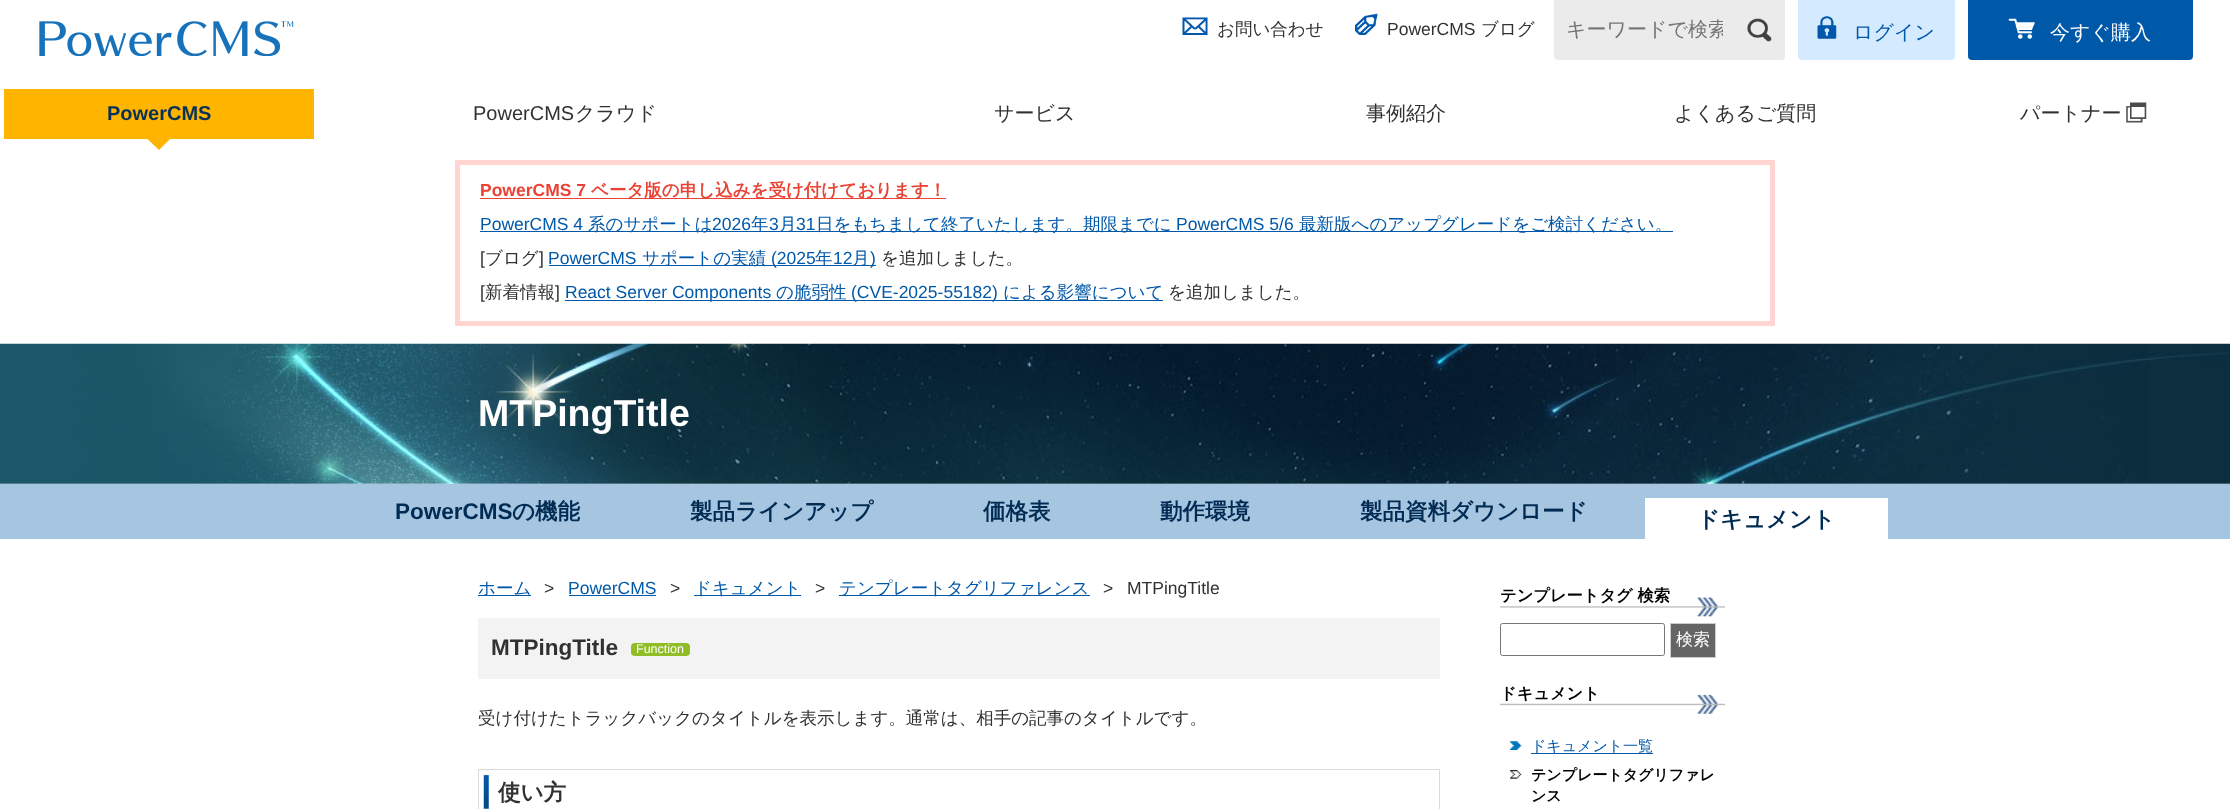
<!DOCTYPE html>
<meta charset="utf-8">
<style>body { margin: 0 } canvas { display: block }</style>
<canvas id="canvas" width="2230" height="809"></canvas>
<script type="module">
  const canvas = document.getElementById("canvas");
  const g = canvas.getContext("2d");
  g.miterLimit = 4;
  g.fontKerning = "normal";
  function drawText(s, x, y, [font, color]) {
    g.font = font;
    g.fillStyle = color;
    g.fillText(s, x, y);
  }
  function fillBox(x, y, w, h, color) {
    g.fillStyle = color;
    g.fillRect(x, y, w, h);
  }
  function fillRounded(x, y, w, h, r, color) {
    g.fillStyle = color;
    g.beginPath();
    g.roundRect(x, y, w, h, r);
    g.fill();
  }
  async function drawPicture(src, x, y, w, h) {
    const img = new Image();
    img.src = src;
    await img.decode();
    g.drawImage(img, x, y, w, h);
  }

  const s1 = ["500 17.5px WenQuanYi Zen Hei", "#313131"];
  const s2 = ["17.5px Liberation Sans", "#313131"];
  const s3 = ["500 20px WenQuanYi Zen Hei", "#757575"];
  const s4 = ["500 20px WenQuanYi Zen Hei", "#0058A9"];
  const s5 = ["500 20px WenQuanYi Zen Hei", "#FFFFFF"];
  const s6 = ["bold 20px Liberation Sans", "#083157"];
  const s7 = ["20px Liberation Sans", "#313131"];
  const s8 = ["500 20px WenQuanYi Zen Hei", "#313131"];
  const s9 = ["bold 17.5px Liberation Sans", "#EA4335"];
  const s10 = ["bold 17.5px WenQuanYi Zen Hei", "#EA4335"];
  const s11 = ["17.5px Liberation Sans", "#0058A9"];
  const s12 = ["500 17.5px WenQuanYi Zen Hei", "#0058A9"];
  const s13 = ["bold 37.5px Liberation Sans", "#FFFFFF"];
  const s14 = ["bold 22.5px Liberation Sans", "#002B52"];
  const s15 = ["bold 22.5px WenQuanYi Zen Hei", "#002B52"];
  const s16 = ["bold 22.5px Liberation Sans", "#313131"];
  const s17 = ["12.5px Liberation Sans", "#FFFFFF"];
  const s18 = ["bold 22.5px WenQuanYi Zen Hei", "#313131"];
  const s19 = ["bold 16.25px WenQuanYi Zen Hei", "#000000"];
  const s20 = ["500 17px WenQuanYi Zen Hei", "#FFFFFF"];
  const s21 = ["500 15px WenQuanYi Zen Hei", "#0058A9"];
  const s22 = ["bold 15px WenQuanYi Zen Hei", "#000000"];

  fillBox(0, 0, 2230, 809, "#FFFFFF");
  await drawPicture("pic1.png", 39, 21, 255, 35);
  await drawPicture("pic2.png", 1182, 17, 26, 18);
  drawText("お問い合わせ", 1217, 35, s1);
  await drawPicture("pic3.png", 1355, 13, 23, 22);
  drawText("PowerCMS", 1387, 35, s2);
  drawText("ブログ", 1481, 35, s1);
  g.fillStyle = "#EBEBEB";
  g.beginPath();
  g.roundRect(1554, 0, 231, 60, [0, 0, 4, 4]);
  g.fill();
  g.save();
  g.beginPath();
  g.rect(1566, 18, 157, 26);
  g.clip();
  drawText("キーワードで検索", 1566, 36, s3);
  g.restore();
  await drawPicture("pic4.png", 1747, 18, 25, 24);
  g.fillStyle = "#D4EAFF";
  g.beginPath();
  g.roundRect(1798, 0, 157, 60, [0, 0, 4, 4]);
  g.fill();
  await drawPicture("pic5.png", 1817, 16, 20, 23);
  drawText("ログイン", 1853, 39, s4);
  g.beginPath();
  g.roundRect(1968, 0, 225, 60, [0, 0, 4, 4]);
  g.fill();
  await drawPicture("pic6.png", 2008, 18, 27, 21);
  drawText("今すぐ購入", 2050, 39, s5);
  fillBox(4, 89, 310, 50, "#FFB400");
  drawText("PowerCMS", 107, 120, s6);
  g.fillStyle = "#FFB400";
  g.beginPath();
  g.moveTo(147.5, 139);
  g.lineTo(170, 139);
  g.lineTo(159, 150);
  g.closePath();
  g.fill();
  drawText("PowerCMS", 473, 120, s7);
  drawText("クラウド", 575, 120, s8);
  drawText("サービス", 994, 120, s8);
  drawText("事例紹介", 1366, 120, s8);
  drawText("よくあるご質問", 1674, 120, s8);
  drawText("パートナー", 2020, 120, s8);
  await drawPicture("pic7.png", 2126, 102, 21, 21);
  g.strokeStyle = "#FFD4D1";
  g.lineWidth = 5;
  g.strokeRect(457.5, 162.5, 1315, 161);
  drawText("PowerCMS 7", 480, 196, s9);
  fillBox(480, 198, 466, 1, "#EA4335");
  drawText("ベータ版の申し込みを受け付けております！", 591, 196, s10);
  drawText("PowerCMS 4", 480, 230, s11);
  fillBox(480, 231, 1193, 1, "#0058A9");
  drawText("系のサポートは", 588, 230, s12);
  drawText("2026", 712, 230, s11);
  drawText("年", 751, 230, s12);
  drawText("3", 769, 230, s11);
  drawText("月", 779, 230, s12);
  drawText("31", 796, 230, s11);
  drawText("日をもちまして終了いたします。期限までに", 816, 230, s12);
  drawText("PowerCMS 5/6", 1176, 230, s11);
  drawText("最新版へのアップグレードをご検討ください。", 1299, 230, s12);
  drawText("[", 480, 264, s2);
  drawText("ブログ", 485, 264, s1);
  drawText("]", 539, 264, s2);
  drawText("PowerCMS", 548, 264, s11);
  fillBox(549, 265, 327, 1, "#0058A9");
  drawText("サポートの実績", 642, 264, s12);
  drawText("(2025", 771, 264, s11);
  drawText("年", 815, 264, s12);
  drawText("12", 833, 264, s11);
  drawText("月", 852, 264, s12);
  drawText(")", 870, 264, s11);
  drawText("を追加しました。", 881, 264, s1);
  drawText("[", 480, 298, s2);
  drawText("新着情報", 485, 298, s1);
  drawText("]", 555, 298, s2);
  fillBox(565, 300, 598, 1, "#0058A9");
  drawText("React Server Components", 565, 298, s11);
  drawText("の脆弱性", 776, 298, s12);
  drawText("(CVE-2025-55182)", 851, 298, s11);
  drawText("による影響について", 1003, 298, s12);
  drawText("を追加しました。", 1168, 298, s1);
  await drawPicture("pic8.png", 0, 343, 2230, 141);
  drawText("MTPingTitle", 478, 426, s13);
  fillBox(0, 484, 2230, 55, "#A6C5E1");
  drawText("PowerCMS", 395, 519, s14);
  drawText("の機能", 512, 519, s15);
  drawText("製品ラインアップ", 690, 519, s15);
  drawText("価格表", 983, 519, s15);
  drawText("動作環境", 1160, 519, s15);
  drawText("製品資料ダウンロード", 1360, 519, s15);
  fillBox(1645, 498, 243, 41, "#FFFFFF");
  drawText("ドキュメント", 1697, 527, s15);
  fillBox(478, 595, 53, 1, "#0058A9");
  drawText("ホーム", 478, 594, s12);
  drawText(">", 544, 594, s2);
  drawText("PowerCMS", 568, 594, s11);
  fillBox(569, 595, 87, 1, "#0058A9");
  drawText(">", 670, 594, s2);
  fillBox(694, 595, 107, 1, "#0058A9");
  drawText("ドキュメント", 694, 594, s12);
  drawText(">", 815, 594, s2);
  fillBox(839, 595, 251, 1, "#0058A9");
  drawText("テンプレートタグリファレンス", 839, 594, s12);
  drawText(">", 1103, 594, s2);
  drawText("MTPingTitle", 1127, 594, s2);
  fillBox(478, 618, 962, 61, "#F3F3F3");
  drawText("MTPingTitle", 491, 655, s16);
  fillRounded(631, 643, 59, 13, 4, "#90BD26");
  drawText("Function", 636, 653, s17);
  drawText("受け付けたトラックバックのタイトルを表示します。通常は、相手の記事のタイトルです。", 478, 724, s1);
  await drawPicture("pic9.png", 479, 770, 10, 39);
  g.strokeStyle = "#DBDBDB";
  g.lineWidth = 1;
  g.strokeRect(478.5, 769.5, 961, 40);
  drawText("使い方", 498, 800, s18);
  await drawPicture("pic10.png", 1500, 597, 225, 20);
  drawText("テンプレートタグ 検索", 1500, 601, s19);
  g.beginPath();
  g.roundRect(1500.5, 623.5, 164, 32, 2);
  g.strokeStyle = "#767676";
  g.stroke();
  g.fillStyle = "#656565";
  g.beginPath();
  g.rect(1670.5, 623.5, 45, 34);
  g.fill();
  g.strokeStyle = "#CCCCCC";
  g.stroke();
  drawText("検索", 1676, 645, s20);
  await drawPicture("pic11.png", 1500, 694, 225, 20);
  drawText("ドキュメント", 1500, 699, s19);
  await drawPicture("pic12.png", 1510, 741, 12, 9);
  drawText("ドキュメント一覧", 1531, 751, s21);
  fillBox(1531, 753, 122, 1, "#0058A9");
  await drawPicture("pic13.png", 1510, 770, 12, 9);
  drawText("テンプレートタグリファレ", 1531, 780, s22);
  drawText("ンス", 1531, 801, s22);
</script>
